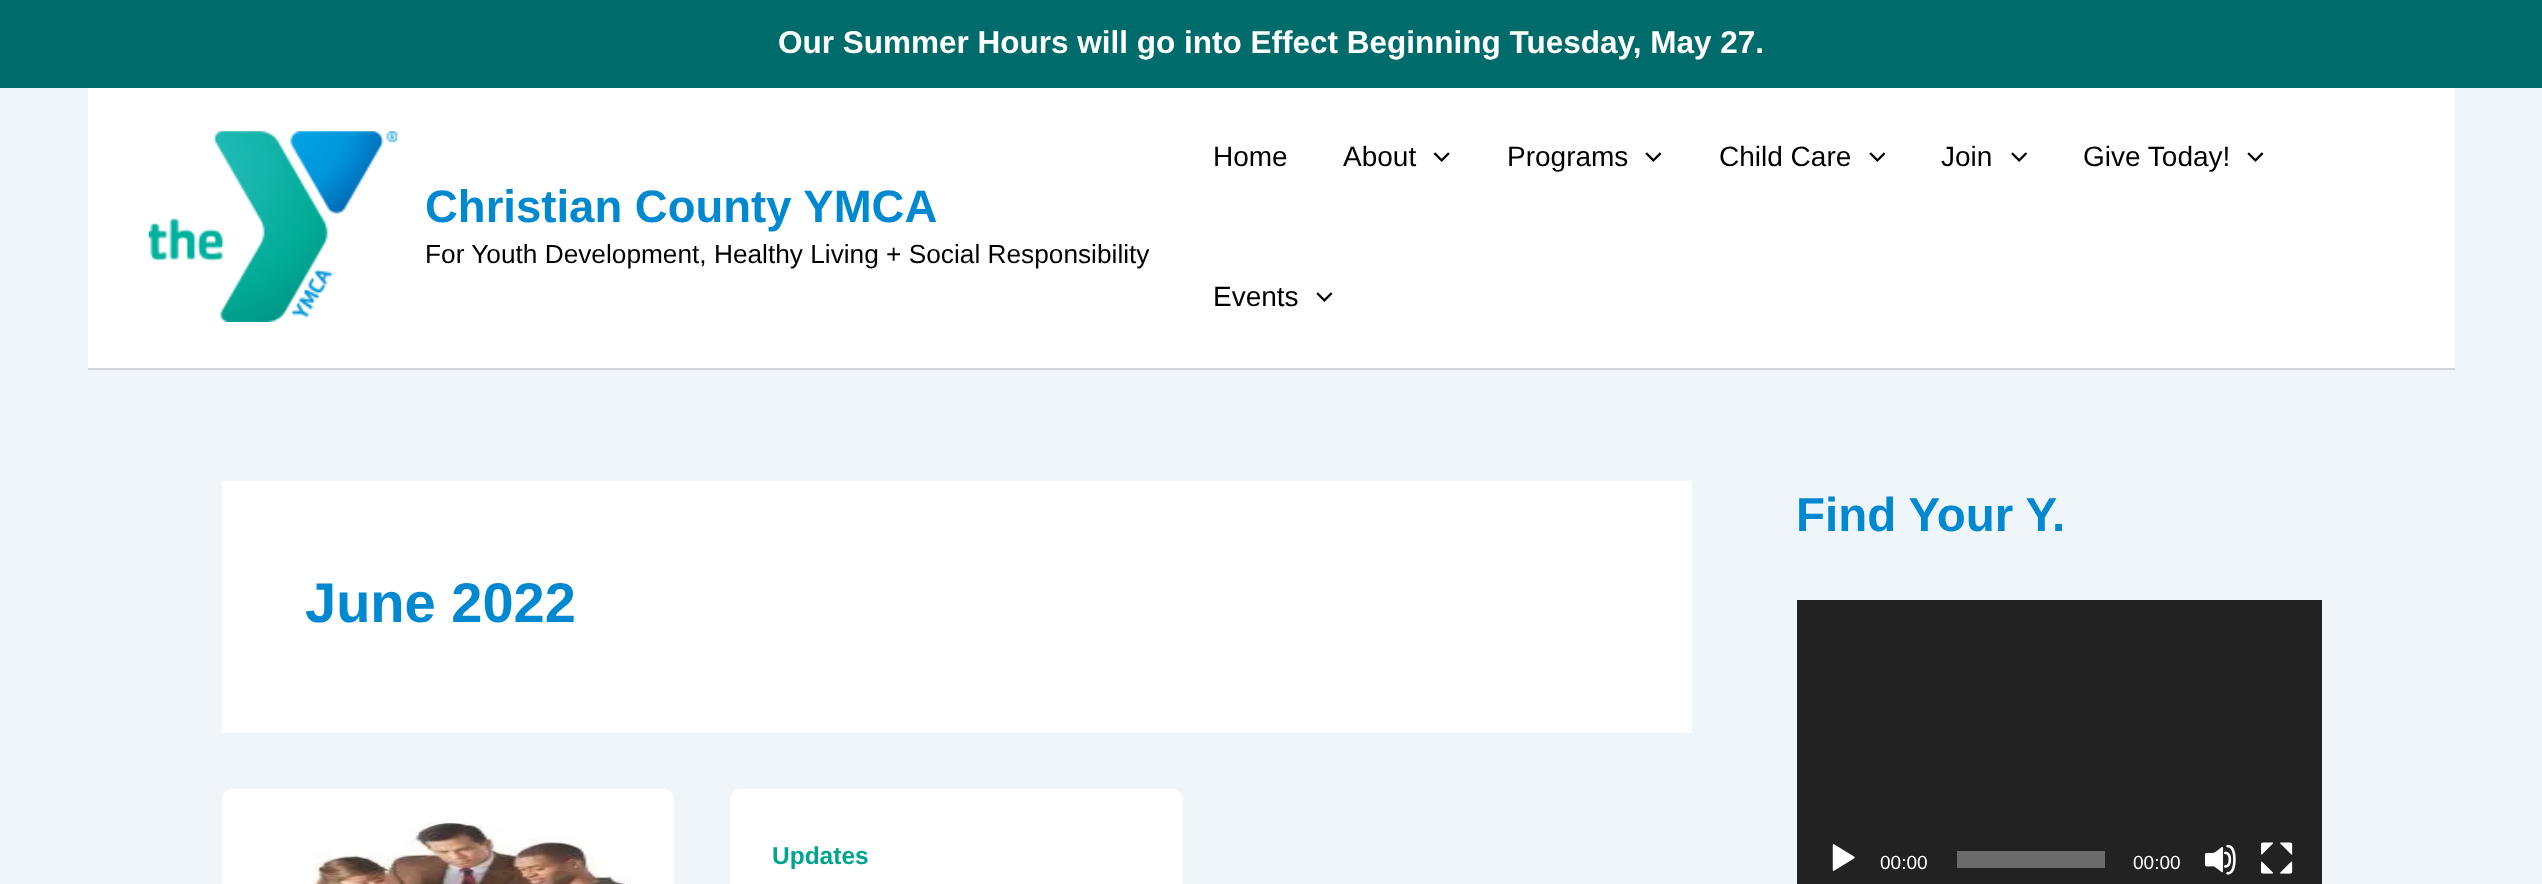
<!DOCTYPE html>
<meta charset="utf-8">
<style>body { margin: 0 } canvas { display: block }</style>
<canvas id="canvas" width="2542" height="884"></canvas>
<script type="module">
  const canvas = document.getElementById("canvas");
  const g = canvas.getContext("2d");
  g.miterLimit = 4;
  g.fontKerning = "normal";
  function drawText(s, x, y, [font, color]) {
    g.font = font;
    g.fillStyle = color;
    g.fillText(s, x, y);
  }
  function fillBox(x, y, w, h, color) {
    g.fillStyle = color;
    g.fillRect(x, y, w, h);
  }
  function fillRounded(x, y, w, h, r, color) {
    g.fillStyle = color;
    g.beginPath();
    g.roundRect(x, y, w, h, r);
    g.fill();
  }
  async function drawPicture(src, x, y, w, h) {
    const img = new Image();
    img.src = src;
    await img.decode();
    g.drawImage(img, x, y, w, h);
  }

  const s1 = ["bold 31.5px Liberation Sans", "#FFFFFF"];
  const s2 = ["bold 45.5px Liberation Sans", "#0089D0"];
  const s3 = ["26.25px Liberation Sans", "#000000"];
  const s4 = ["28px Liberation Sans", "#000000"];
  const s5 = ["bold 56px Liberation Sans", "#0089D0"];
  const s6 = ["bold 24.5px Liberation Sans", "#01A490"];
  const s7 = ["bold 47.5px Liberation Sans", "#0089D0"];
  const s8 = ["19px Liberation Sans", "#FFFFFF"];

  fillBox(0, 0, 2542, 884, "#F0F5FA");
  fillBox(0, 0, 2542, 88, "#006B6B");
  drawText("Our Summer Hours will go into Effect Beginning Tuesday, May 27.", 778, 53, s1);
  fillBox(88, 88, 2367, 280, "#FFFFFF");
  fillBox(88, 368, 2367, 2, "#D1D5DB");
  await drawPicture("pic1.png", 148, 131, 250, 191);
  drawText("Christian County YMCA", 425, 222, s2);
  drawText("For Youth Development, Healthy Living + Social Responsibility", 425, 263, s3);
  drawText("Home", 1213, 166, s4);
  drawText("About", 1343, 166, s4);
  await drawPicture("pic2.png", 1433, 152, 17, 10);
  drawText("Programs", 1507, 166, s4);
  await drawPicture("pic3.png", 1645, 152, 17, 10);
  drawText("Child Care", 1719, 166, s4);
  await drawPicture("pic4.png", 1869, 152, 16, 10);
  drawText("Join", 1941, 166, s4);
  await drawPicture("pic5.png", 2011, 152, 16, 10);
  drawText("Give Today!", 2083, 166, s4);
  await drawPicture("pic3.png", 2247, 152, 17, 10);
  drawText("Events", 1213, 306, s4);
  await drawPicture("pic3.png", 1316, 292, 17, 10);
  fillBox(222, 481, 1470, 252, "#FFFFFF");
  drawText("June 2022", 305, 622, s5);
  fillRounded(222, 789, 452, 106, 11, "#FFFFFF");
  await drawPicture("pic6.png", 311, 822, 320, 62);
  fillRounded(730, 789, 453, 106, 11, "#FFFFFF");
  drawText("Updates", 772, 864, s6);
  drawText("Find Your Y.", 1796, 531, s7);
  fillBox(1797, 600, 525, 284, "#222222");
  await drawPicture("pic7.png", 1832, 844, 23, 27);
  drawText("00:00", 1880, 869, s8);
  fillBox(1957, 851, 148, 17, "#6B6B6B");
  drawText("00:00", 2133, 869, s8);
  await drawPicture("pic8.png", 2205, 844, 31, 31);
  await drawPicture("pic9.png", 2261, 842, 32, 32);
</script>
